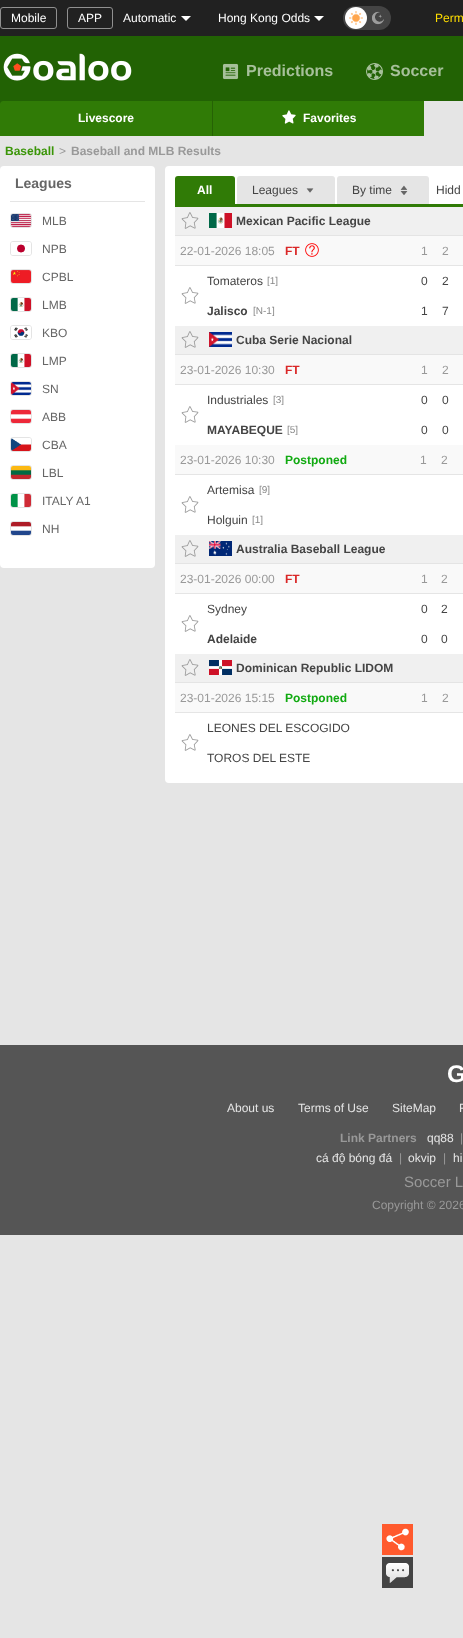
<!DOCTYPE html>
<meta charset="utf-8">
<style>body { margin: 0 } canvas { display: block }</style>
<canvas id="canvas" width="463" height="1638"></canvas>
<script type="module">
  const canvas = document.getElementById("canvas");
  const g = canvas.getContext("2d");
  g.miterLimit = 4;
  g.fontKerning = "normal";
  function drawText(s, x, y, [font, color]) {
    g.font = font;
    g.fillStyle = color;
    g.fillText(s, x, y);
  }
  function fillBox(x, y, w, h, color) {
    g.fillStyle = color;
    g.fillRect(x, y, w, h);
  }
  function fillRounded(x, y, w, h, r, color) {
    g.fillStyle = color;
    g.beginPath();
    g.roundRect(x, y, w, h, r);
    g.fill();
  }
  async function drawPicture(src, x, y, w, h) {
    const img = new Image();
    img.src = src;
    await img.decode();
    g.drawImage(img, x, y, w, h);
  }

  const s1 = ["12px Liberation Sans", "#FFFFFF"];
  const s2 = ["12px Liberation Sans", "#FFDE00"];
  const s3 = ["bold 16px Liberation Sans", "#A7C09B"];
  const s4 = ["bold 12px Liberation Sans", "#FFFFFF"];
  const s5 = ["bold 12px Liberation Sans", "#3A9507"];
  const s6 = ["12px Liberation Sans", "#999999"];
  const s7 = ["bold 12px Liberation Sans", "#999999"];
  const s8 = ["bold 14px Liberation Sans", "#666666"];
  const s9 = ["12px Liberation Sans", "#666666"];
  const s10 = ["12px Liberation Sans", "#444444"];
  const s11 = ["bold 12px Liberation Sans", "#444444"];
  const s12 = ["bold 12px Liberation Sans", "#DA2727"];
  const s13 = ["10px Liberation Sans", "#888888"];
  const s14 = ["bold 12px Liberation Sans", "#11AA11"];
  const s15 = ["bold 24px Liberation Sans", "#FFFFFF"];
  const s16 = ["12px Liberation Sans", "#E5E5E5"];
  const s17 = ["15px Liberation Sans", "#999999"];

  fillBox(0, 0, 463, 1638, "#E5E5E5");
  fillBox(0, 36, 463, 68, "#226204");
  fillBox(0, 0, 463, 36, "#212121");
  g.beginPath();
  g.roundRect(0.5, 7.5, 56, 21, 2.5);
  g.strokeStyle = "#909090";
  g.stroke();
  drawText("Mobile", 11, 22, s1);
  g.beginPath();
  g.roundRect(67.5, 7.5, 45, 21, 2.5);
  g.stroke();
  drawText("APP", 78, 22, s1);
  drawText("Automatic", 123, 22, s1);
  g.beginPath();
  g.moveTo(181, 16);
  g.lineTo(191, 16);
  g.lineTo(186, 21);
  g.closePath();
  g.fill();
  drawText("Hong Kong Odds", 218, 22, s1);
  g.beginPath();
  g.moveTo(314, 16);
  g.lineTo(324, 16);
  g.lineTo(319, 21);
  g.closePath();
  g.fill();
  fillRounded(343, 6, 48, 24, 12, "#444444");
  await drawPicture("pic1.png", 372, 11, 12, 14);
  g.fillStyle = "#FFFFFF";
  g.beginPath();
  g.arc(356, 18, 11, 0, Math.PI * 2);
  g.fill();
  await drawPicture("pic2.png", 349, 11, 14, 14);
  drawText("Perm", 435, 22, s2);
  await drawPicture("pic3.png", 3, 53, 129, 28);
  await drawPicture("pic4.png", 222, 63, 17, 17);
  drawText("Predictions", 246, 76, s3);
  await drawPicture("pic5.png", 366, 63, 17, 17);
  drawText("Soccer", 390, 76, s3);
  g.fillStyle = "#307B06";
  g.beginPath();
  g.moveTo(3, 101);
  g.lineTo(463, 101);
  g.bezierCurveTo(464.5, 101, 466, 102.5, 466, 104);
  g.lineTo(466, 136);
  g.lineTo(0, 136);
  g.lineTo(0, 104);
  g.bezierCurveTo(0, 102.5, 1.5, 101, 3, 101);
  g.closePath();
  g.fill();
  fillBox(212, 101, 1, 35, "#266205");
  drawText("Livescore", 78, 122, s4);
  await drawPicture("pic6.png", 282, 110, 14, 14);
  drawText("Favorites", 303, 122, s4);
  fillBox(424, 101, 39, 35, "#E5E5E5");
  drawText("Baseball", 5, 155, s5);
  drawText(">", 59, 155, s6);
  drawText("Baseball and MLB Results", 71, 155, s7);
  fillRounded(0, 166, 155, 402, 4, "#FFFFFF");
  fillBox(10, 201, 135, 1, "#E5E5E5");
  drawText("Leagues", 15, 188, s8);
  g.beginPath();
  g.roundRect(10.5, 213.5, 21, 14, 2.5);
  g.strokeStyle = "#E4E4E4";
  g.stroke();
  await drawPicture("pic7.png", 11, 214, 20, 13);
  drawText("MLB", 42, 225, s9);
  g.beginPath();
  g.roundRect(10.5, 241.5, 21, 14, 2.5);
  g.stroke();
  await drawPicture("pic8.png", 11, 242, 20, 13);
  drawText("NPB", 42, 253, s9);
  g.beginPath();
  g.roundRect(10.5, 269.5, 21, 14, 2.5);
  g.stroke();
  await drawPicture("pic9.png", 11, 270, 20, 13);
  drawText("CPBL", 42, 281, s9);
  g.beginPath();
  g.roundRect(10.5, 297.5, 21, 14, 2.5);
  g.stroke();
  await drawPicture("pic10.png", 11, 298, 20, 13);
  drawText("LMB", 42, 309, s9);
  g.beginPath();
  g.roundRect(10.5, 325.5, 21, 14, 2.5);
  g.stroke();
  await drawPicture("pic11.png", 11, 326, 20, 13);
  drawText("KBO", 42, 337, s9);
  g.beginPath();
  g.roundRect(10.5, 353.5, 21, 14, 2.5);
  g.stroke();
  await drawPicture("pic10.png", 11, 354, 20, 13);
  drawText("LMP", 42, 365, s9);
  g.beginPath();
  g.roundRect(10.5, 381.5, 21, 14, 2.5);
  g.stroke();
  await drawPicture("pic12.png", 11, 382, 20, 13);
  drawText("SN", 42, 393, s9);
  g.beginPath();
  g.roundRect(10.5, 409.5, 21, 14, 2.5);
  g.stroke();
  await drawPicture("pic13.png", 11, 410, 20, 13);
  drawText("ABB", 42, 421, s9);
  g.beginPath();
  g.roundRect(10.5, 437.5, 21, 14, 2.5);
  g.stroke();
  await drawPicture("pic14.png", 11, 438, 20, 13);
  drawText("CBA", 42, 449, s9);
  g.beginPath();
  g.roundRect(10.5, 465.5, 21, 14, 2.5);
  g.stroke();
  await drawPicture("pic15.png", 11, 466, 20, 13);
  drawText("LBL", 42, 477, s9);
  g.beginPath();
  g.roundRect(10.5, 493.5, 21, 14, 2.5);
  g.stroke();
  await drawPicture("pic16.png", 11, 494, 20, 13);
  drawText("ITALY A1", 42, 505, s9);
  g.beginPath();
  g.roundRect(10.5, 521.5, 21, 14, 2.5);
  g.stroke();
  await drawPicture("pic17.png", 11, 522, 20, 13);
  drawText("NH", 42, 533, s9);
  fillRounded(165, 166, 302, 617, 4, "#FFFFFF");
  fillBox(175, 204, 288, 3, "#307B06");
  g.beginPath();
  g.roundRect(175, 176, 60, 28, [3, 3, 0, 0]);
  g.fill();
  drawText("All", 197, 194, s4);
  g.fillStyle = "#E5E5E5";
  g.beginPath();
  g.roundRect(237, 176, 98, 28, [3, 3, 0, 0]);
  g.fill();
  drawText("Leagues", 252, 194, s10);
  await drawPicture("pic18.png", 306, 188, 8, 5);
  g.fillStyle = "#E5E5E5";
  g.beginPath();
  g.roundRect(337, 176, 92, 28, [3, 3, 0, 0]);
  g.fill();
  drawText("By time", 352, 194, s10);
  await drawPicture("pic19.png", 400, 185, 8, 10);
  drawText("Hidd", 436, 194, s10);
  fillBox(175, 207, 288, 28, "#F0F0F0");
  fillBox(175, 235, 288, 1, "#E4E4E4");
  await drawPicture("pic20.png", 181, 212, 18, 17);
  await drawPicture("pic21.png", 209, 213, 23, 15);
  drawText("Mexican Pacific League", 236, 225, s11);
  fillBox(175, 236, 280, 29, "#F9F9F9");
  fillBox(175, 265, 280, 1, "#E5E5E5");
  drawText("22-01-2026 18:05", 180, 255, s6);
  drawText("FT", 285, 255, s12);
  await drawPicture("pic22.png", 305, 243, 14, 14);
  drawText("1", 421, 255, s6);
  drawText("2", 442, 255, s6);
  fillBox(455, 236, 8, 30, "#F9F9F9");
  fillBox(455, 265, 8, 1, "#E5E5E5");
  drawText("Tomateros", 207, 285, s10);
  drawText("[1]", 267, 284, s13);
  drawText("0", 421, 285, s10);
  drawText("2", 442, 285, s10);
  await drawPicture("pic23.png", 181, 287, 18, 17);
  drawText("Jalisco", 207, 315, s11);
  drawText("[N-1]", 253, 314, s13);
  drawText("1", 421, 315, s10);
  drawText("7", 442, 315, s10);
  fillBox(175, 326, 288, 28, "#F0F0F0");
  fillBox(175, 354, 288, 1, "#E4E4E4");
  await drawPicture("pic20.png", 181, 331, 18, 17);
  await drawPicture("pic24.png", 209, 332, 23, 15);
  drawText("Cuba Serie Nacional", 236, 344, s11);
  fillBox(175, 355, 280, 29, "#F9F9F9");
  fillBox(175, 384, 280, 1, "#E5E5E5");
  drawText("23-01-2026 10:30", 180, 374, s6);
  drawText("FT", 285, 374, s12);
  drawText("1", 421, 374, s6);
  drawText("2", 442, 374, s6);
  fillBox(455, 355, 8, 30, "#F9F9F9");
  fillBox(455, 384, 8, 1, "#E5E5E5");
  drawText("Industriales", 207, 404, s10);
  drawText("[3]", 273, 403, s13);
  drawText("0", 421, 404, s10);
  drawText("0", 442, 404, s10);
  await drawPicture("pic23.png", 181, 406, 18, 17);
  drawText("MAYABEQUE", 207, 434, s11);
  drawText("[5]", 287, 433, s13);
  drawText("0", 421, 434, s10);
  drawText("0", 442, 434, s10);
  fillBox(175, 445, 288, 29, "#F9F9F9");
  fillBox(175, 474, 288, 1, "#E5E5E5");
  drawText("23-01-2026 10:30", 180, 464, s6);
  drawText("Postponed", 285, 464, s14);
  drawText("1", 420, 464, s6);
  drawText("2", 441, 464, s6);
  drawText("Artemisa", 207, 494, s10);
  drawText("[9]", 259, 493, s13);
  await drawPicture("pic23.png", 181, 496, 18, 17);
  drawText("Holguin", 207, 524, s10);
  drawText("[1]", 252, 523, s13);
  fillBox(175, 535, 288, 28, "#F0F0F0");
  fillBox(175, 563, 288, 1, "#E4E4E4");
  await drawPicture("pic20.png", 181, 540, 18, 17);
  await drawPicture("pic25.png", 209, 541, 23, 15);
  drawText("Australia Baseball League", 236, 553, s11);
  fillBox(175, 564, 280, 29, "#F9F9F9");
  fillBox(175, 593, 280, 1, "#E5E5E5");
  drawText("23-01-2026 00:00", 180, 583, s6);
  drawText("FT", 285, 583, s12);
  drawText("1", 421, 583, s6);
  drawText("2", 441, 583, s6);
  fillBox(455, 564, 8, 30, "#F9F9F9");
  fillBox(455, 593, 8, 1, "#E5E5E5");
  drawText("Sydney", 207, 613, s10);
  drawText("0", 421, 613, s10);
  drawText("2", 441, 613, s10);
  await drawPicture("pic23.png", 181, 615, 18, 17);
  drawText("Adelaide", 207, 643, s11);
  drawText("0", 421, 643, s10);
  drawText("0", 441, 643, s10);
  fillBox(175, 654, 288, 28, "#F0F0F0");
  fillBox(175, 682, 288, 1, "#E4E4E4");
  await drawPicture("pic20.png", 181, 659, 18, 17);
  await drawPicture("pic26.png", 209, 660, 23, 15);
  drawText("Dominican Republic LIDOM", 236, 672, s11);
  fillBox(175, 683, 280, 29, "#F9F9F9");
  fillBox(175, 712, 280, 1, "#E5E5E5");
  drawText("23-01-2026 15:15", 180, 702, s6);
  drawText("Postponed", 285, 702, s14);
  drawText("1", 421, 702, s6);
  drawText("2", 442, 702, s6);
  fillBox(455, 683, 8, 30, "#F9F9F9");
  fillBox(455, 712, 8, 1, "#E5E5E5");
  drawText("LEONES DEL ESCOGIDO", 207, 732, s10);
  await drawPicture("pic23.png", 181, 734, 18, 17);
  drawText("TOROS DEL ESTE", 207, 762, s10);
  fillBox(0, 1045, 463, 190, "#555555");
  drawText("G", 447, 1082, s15);
  drawText("About us", 227, 1112, s16);
  drawText("Terms of Use", 298, 1112, s16);
  drawText("SiteMap", 392, 1112, s16);
  drawText("F", 459, 1112, s16);
  drawText("Link Partners", 340, 1142, s7);
  drawText("qq88", 427, 1142, s16);
  drawText("|", 460, 1142, s6);
  drawText("cá độ bóng đá", 316, 1162, s16);
  drawText("|", 399, 1162, s6);
  drawText("okvip", 408, 1162, s16);
  drawText("|", 443, 1162, s6);
  drawText("hi", 453, 1162, s16);
  drawText("Soccer L", 404, 1187, s17);
  drawText("Copyright © 2026", 372, 1209, s6);
  await drawPicture("pic27.png", 382, 1524, 31, 31);
  await drawPicture("pic28.png", 382, 1557, 31, 31);
</script>
